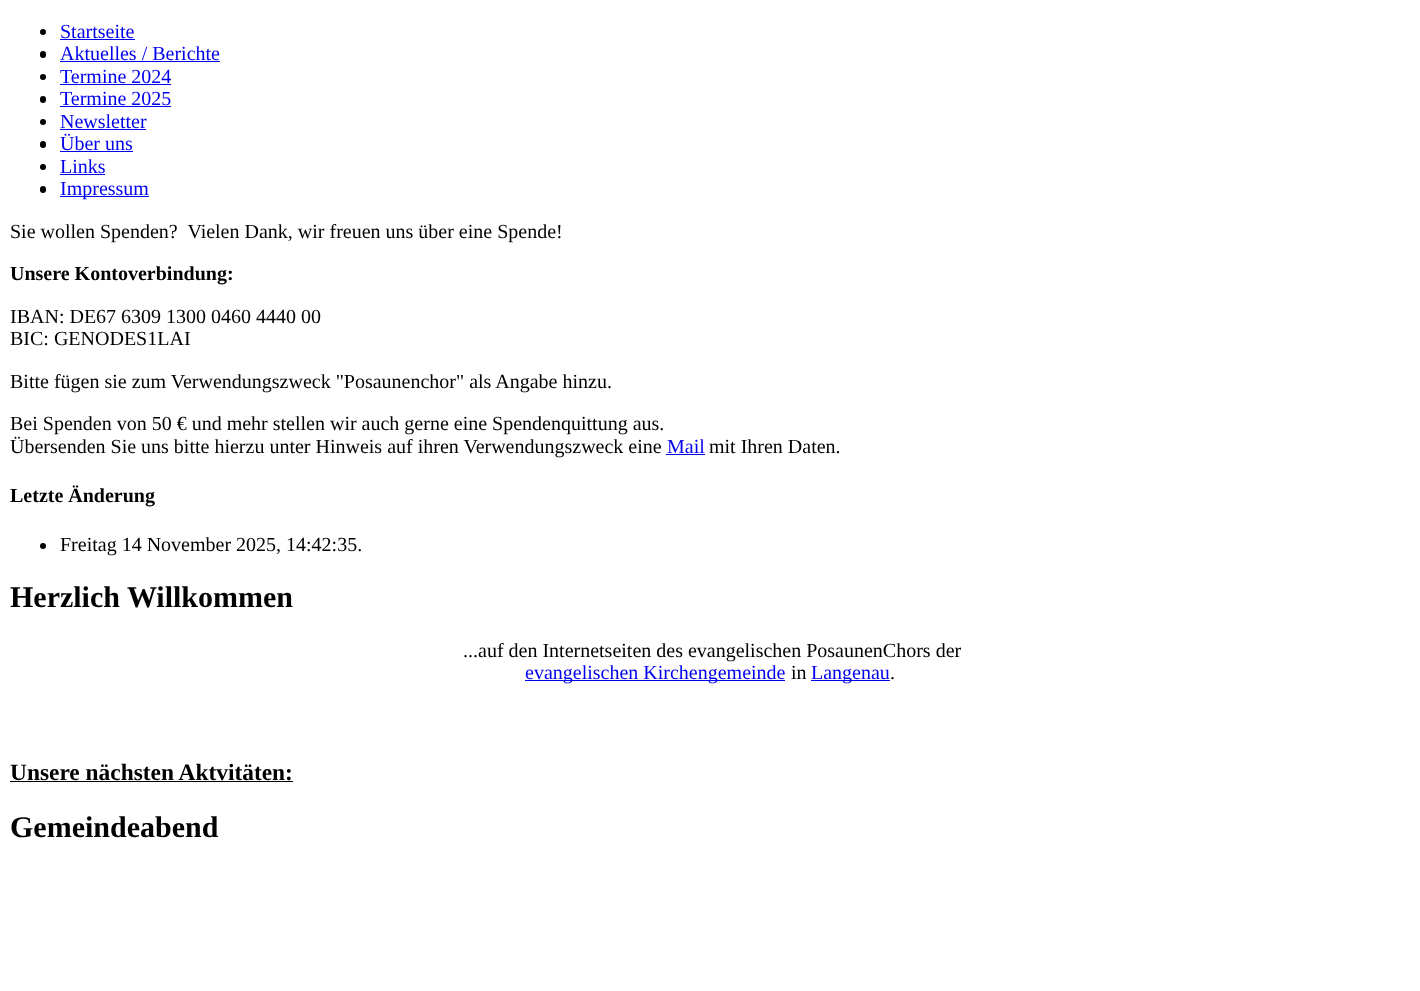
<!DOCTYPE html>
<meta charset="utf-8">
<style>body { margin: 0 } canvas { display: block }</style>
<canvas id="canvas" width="1420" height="991"></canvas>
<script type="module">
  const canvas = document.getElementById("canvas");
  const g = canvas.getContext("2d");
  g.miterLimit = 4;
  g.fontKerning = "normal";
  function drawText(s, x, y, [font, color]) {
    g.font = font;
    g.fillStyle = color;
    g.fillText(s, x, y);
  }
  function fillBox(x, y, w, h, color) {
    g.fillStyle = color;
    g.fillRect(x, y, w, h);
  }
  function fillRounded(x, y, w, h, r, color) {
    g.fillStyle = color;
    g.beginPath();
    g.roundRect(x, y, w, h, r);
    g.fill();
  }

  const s1 = ["20px Liberation Serif", "#0000EE"];
  const s2 = ["20px Liberation Serif", "#000000"];
  const s3 = ["bold 20px Liberation Serif", "#000000"];
  const s4 = ["bold 30px Liberation Serif", "#000000"];
  const s5 = ["bold 23.4px Liberation Serif", "#000000"];

  fillBox(0, 0, 1420, 991, "#FFFFFF");
  g.fillStyle = "#000000";
  g.beginPath();
  g.arc(43, 32, 3, 0, Math.PI * 2);
  g.fill();
  drawText("Startseite", 60, 38, s1);
  fillBox(60, 39, 75, 1, "#0000EE");
  fillRounded(40, 51, 6, 7, 3, "#000000");
  drawText("Aktuelles / Berichte", 60, 60, s1);
  fillBox(60, 61, 160, 1, "#0000EE");
  g.fillStyle = "#000000";
  g.beginPath();
  g.arc(43, 77, 3, 0, Math.PI * 2);
  g.fill();
  drawText("Termine 2024", 60, 83, s1);
  fillBox(60, 84, 111, 1, "#0000EE");
  fillRounded(40, 96, 6, 7, 3, "#000000");
  drawText("Termine 2025", 60, 105, s1);
  fillBox(60, 106, 111, 1, "#0000EE");
  g.fillStyle = "#000000";
  g.beginPath();
  g.arc(43, 122, 3, 0, Math.PI * 2);
  g.fill();
  drawText("Newsletter", 60, 128, s1);
  fillBox(60, 129, 86, 1, "#0000EE");
  fillRounded(40, 141, 6, 7, 3, "#000000");
  drawText("Über uns", 60, 150, s1);
  fillBox(60, 151, 73, 1, "#0000EE");
  g.fillStyle = "#000000";
  g.beginPath();
  g.arc(43, 167, 3, 0, Math.PI * 2);
  g.fill();
  drawText("Links", 60, 173, s1);
  fillBox(60, 174, 45, 1, "#0000EE");
  fillRounded(40, 186, 6, 7, 3, "#000000");
  fillBox(60, 196, 89, 1, "#0000EE");
  drawText("Impressum", 60, 195, s1);
  drawText("Sie wollen Spenden?  Vielen Dank, wir freuen uns über eine Spende!", 10, 238, s2);
  drawText("Unsere Kontoverbindung:", 10, 280, s3);
  drawText("IBAN: DE67 6309 1300 0460 4440 00", 10, 323, s2);
  drawText("BIC: GENODES1LAI", 10, 345, s2);
  drawText("Bitte fügen sie zum Verwendungszweck \"Posaunenchor\" als Angabe hinzu.", 10, 388, s2);
  drawText("Bei Spenden von 50 € und mehr stellen wir auch gerne eine Spendenquittung aus.", 10, 430, s2);
  drawText("Übersenden Sie uns bitte hierzu unter Hinweis auf ihren Verwendungszweck eine", 10, 453, s2);
  drawText("Mail", 667, 453, s1);
  fillBox(666, 454, 39, 1, "#0000EE");
  drawText("mit Ihren Daten.", 709, 453, s2);
  drawText("Letzte Änderung", 10, 502, s3);
  g.beginPath();
  g.arc(43, 546, 3, 0, Math.PI * 2);
  g.fill();
  drawText("Freitag 14 November 2025, 14:42:35.", 60, 551, s2);
  drawText("Herzlich Willkommen", 10, 607, s4);
  drawText("...auf den Internetseiten des evangelischen PosaunenChors der", 463, 657, s2);
  fillBox(525, 680, 260, 1, "#0000EE");
  drawText("evangelischen Kirchengemeinde", 525, 679, s1);
  drawText("in", 791, 679, s2);
  fillBox(811, 680, 79, 1, "#0000EE");
  drawText("Langenau", 811, 679, s1);
  drawText(".", 890, 679, s2);
  drawText("Unsere nächsten Aktvitäten:", 10, 780, s5);
  fillBox(10, 781, 283, 1, "#000000");
  drawText("Gemeindeabend", 10, 837, s4);
</script>
